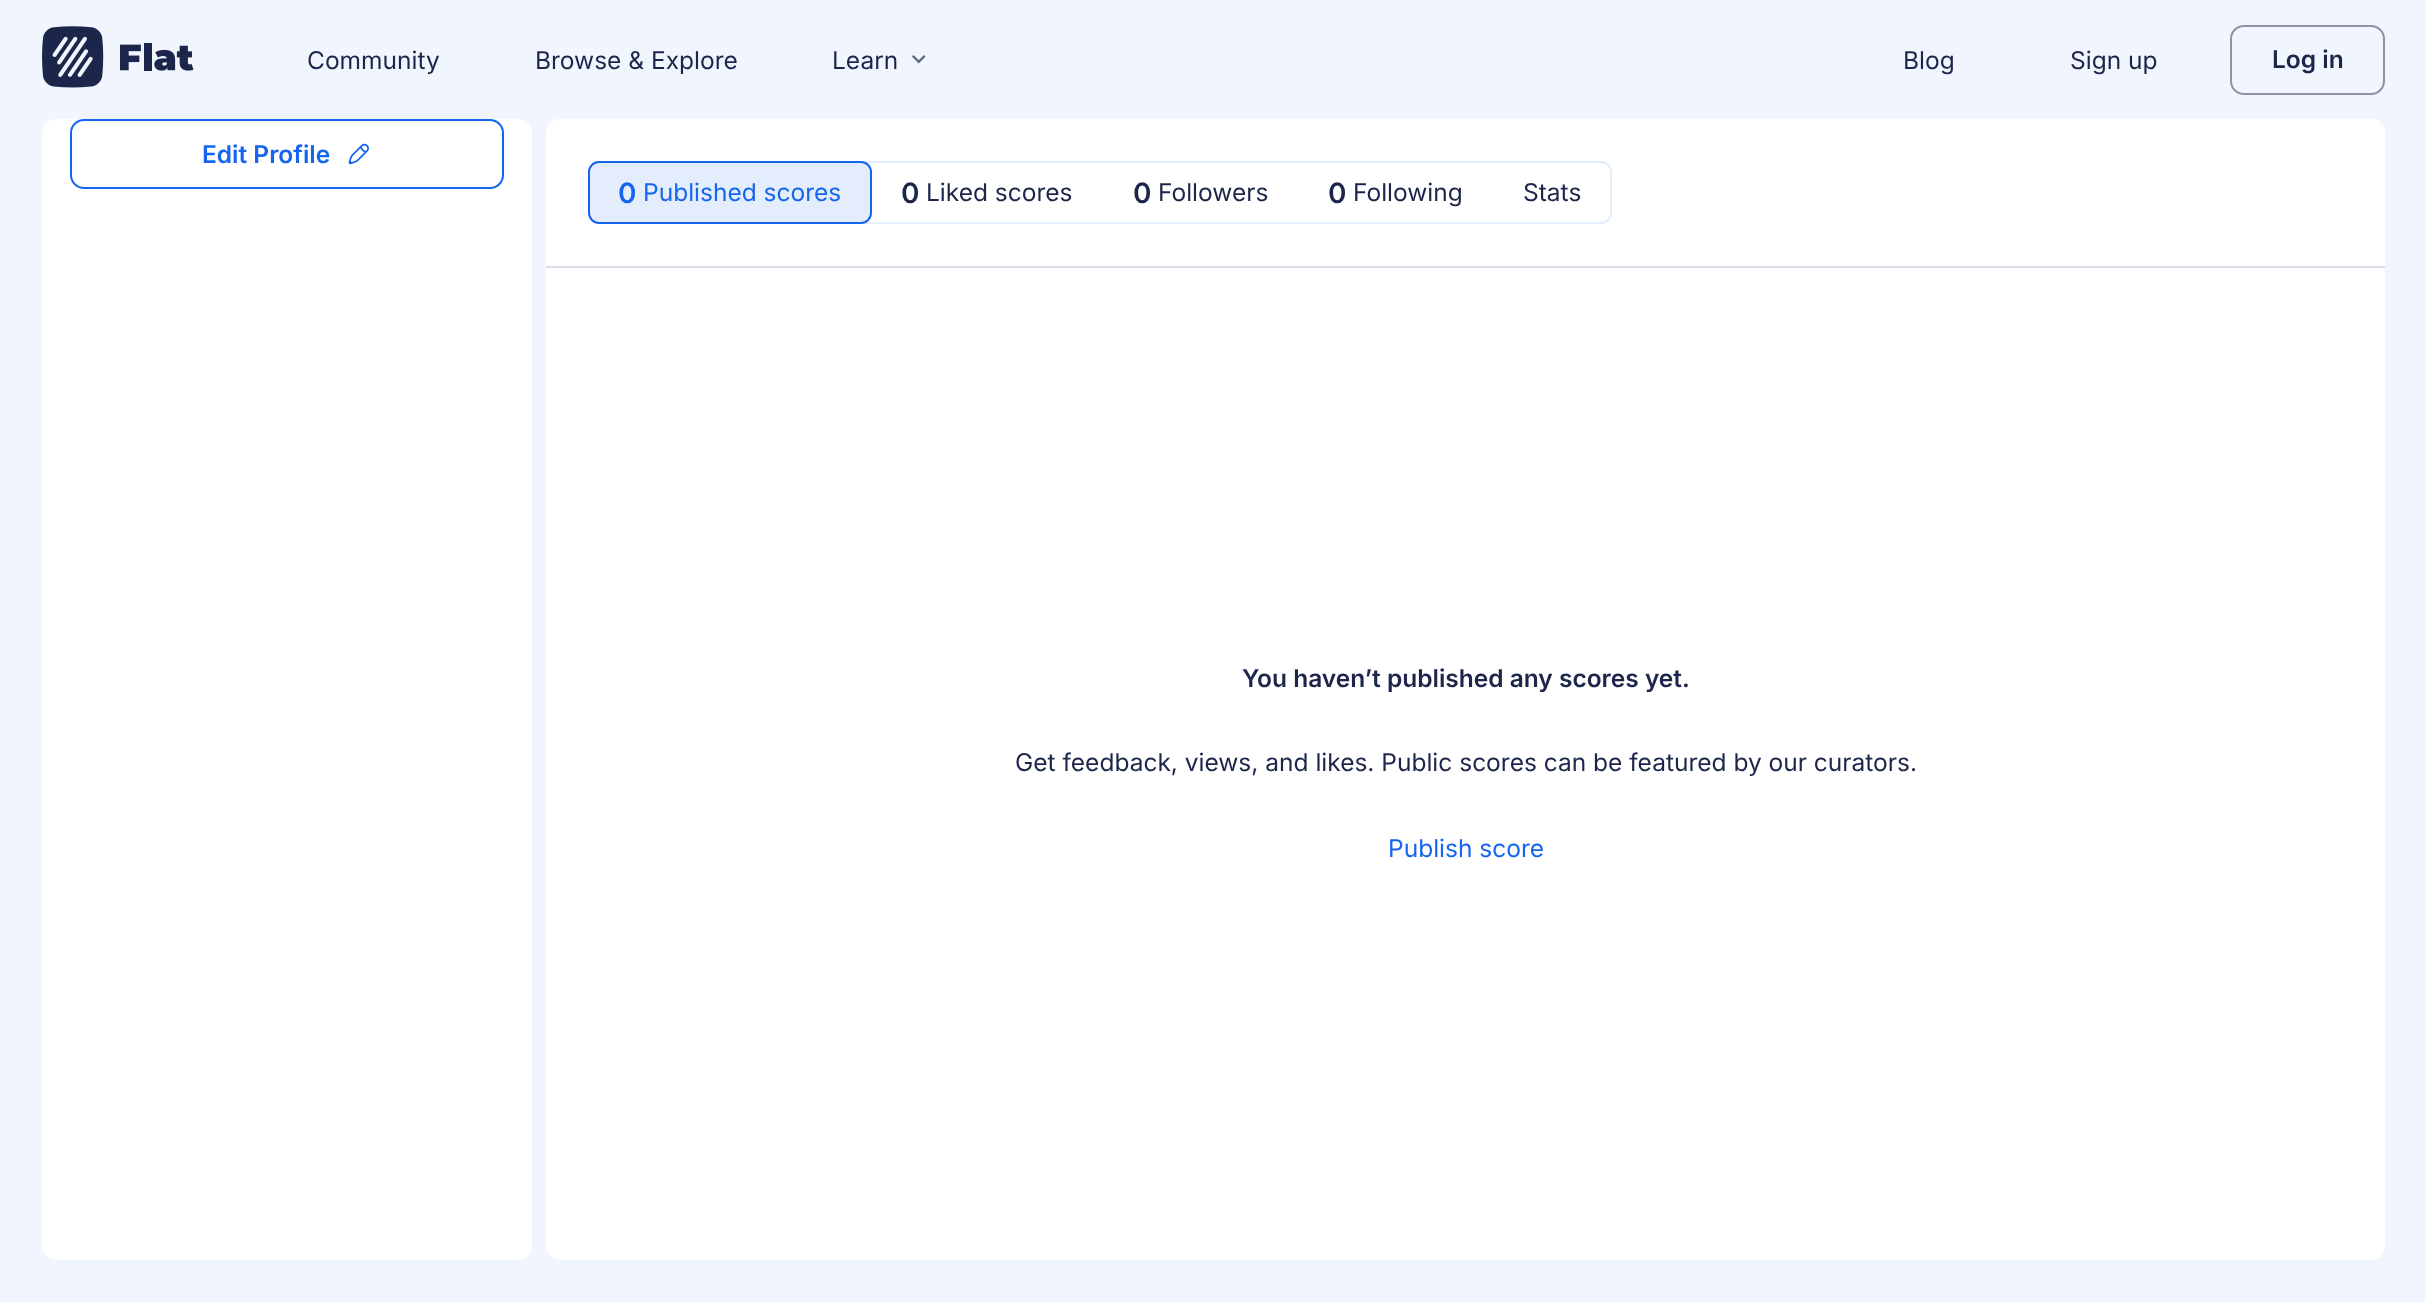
<!DOCTYPE html>
<meta charset="utf-8">
<style>body { margin: 0 } canvas { display: block }</style>
<canvas id="canvas" width="2426" height="1302"></canvas>
<script type="module">
  const canvas = document.getElementById("canvas");
  const g = canvas.getContext("2d");
  g.miterLimit = 4;
  g.fontKerning = "normal";
  function drawText(s, x, y, [font, color]) {
    g.font = font;
    g.fillStyle = color;
    g.fillText(s, x, y);
  }
  function fillBox(x, y, w, h, color) {
    g.fillStyle = color;
    g.fillRect(x, y, w, h);
  }
  function fillRounded(x, y, w, h, r, color) {
    g.fillStyle = color;
    g.beginPath();
    g.roundRect(x, y, w, h, r);
    g.fill();
  }
  async function drawPicture(src, x, y, w, h) {
    const img = new Image();
    img.src = src;
    await img.decode();
    g.drawImage(img, x, y, w, h);
  }

  const s1 = ["24.5px Inter", "#1C264A"];
  const s2 = ["600 24.5px Inter", "#1C264A"];
  const s3 = ["600 24.5px Inter", "#1565EF"];
  const s4 = ["600 28px Inter", "#1565EF"];
  const s5 = ["24.5px Inter", "#1565EF"];
  const s6 = ["600 28px Inter", "#1C264A"];

  fillBox(0, 0, 2426, 1302, "#F1F6FE");
  await drawPicture("pic1.png", 42, 26, 152, 62);
  drawText("Community", 307, 69, s1);
  drawText("Browse & Explore", 535, 69, s1);
  drawText("Learn", 832, 69, s1);
  await drawPicture("pic2.png", 912, 55, 14, 9);
  drawText("Blog", 1903, 69, s1);
  drawText("Sign up", 2070, 69, s1);
  g.beginPath();
  g.roundRect(2231, 26, 153, 68, 13);
  g.strokeStyle = "#8D93A5";
  g.lineWidth = 2;
  g.stroke();
  drawText("Log in", 2272, 68, s2);
  fillRounded(42, 119, 490, 1141, 14, "#FFFFFF");
  g.beginPath();
  g.roundRect(71, 120, 432, 68, 13);
  g.strokeStyle = "#1565EF";
  g.stroke();
  drawText("Edit Profile", 202, 163, s3);
  await drawPicture("pic3.png", 348, 143, 21, 22);
  fillRounded(546, 119, 1839, 1141, 14, "#FFFFFF");
  g.beginPath();
  g.roundRect(546, 119, 1839, 149, [14, 14, 0, 0]);
  g.fill();
  fillBox(546, 266, 1839, 2, "#DBDEE6");
  g.beginPath();
  g.roundRect(589, 162, 1022, 61, 10);
  g.strokeStyle = "#E4EDFB";
  g.stroke();
  g.fillStyle = "#E4EDFB";
  g.beginPath();
  g.roundRect(589, 162, 282, 61, 10);
  g.fill();
  g.strokeStyle = "#1565EF";
  g.stroke();
  drawText("0", 618, 203, s4);
  drawText("Published scores", 643, 201, s5);
  drawText("0", 901, 203, s6);
  drawText("Liked scores", 926, 201, s1);
  drawText("0", 1133, 203, s6);
  drawText("Followers", 1158, 201, s1);
  drawText("0", 1328, 203, s6);
  drawText("Following", 1353, 201, s1);
  drawText("Stats", 1523, 201, s1);
  drawText("You haven’t published any scores yet.", 1242, 687, s2);
  drawText("Get feedback, views, and likes. Public scores can be featured by our curators.", 1015, 771, s1);
  drawText("Publish score", 1388, 857, s5);
</script>
